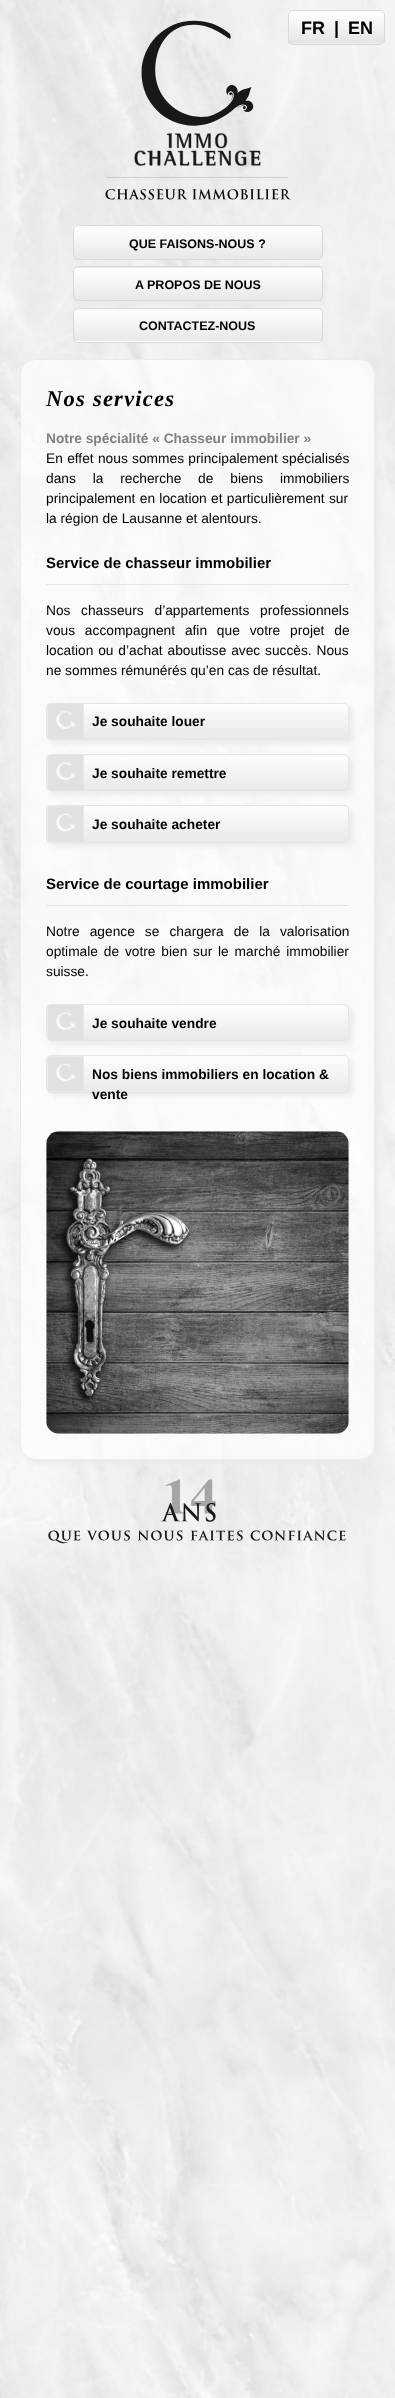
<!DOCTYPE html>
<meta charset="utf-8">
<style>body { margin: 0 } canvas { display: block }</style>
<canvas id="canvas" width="395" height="2398"></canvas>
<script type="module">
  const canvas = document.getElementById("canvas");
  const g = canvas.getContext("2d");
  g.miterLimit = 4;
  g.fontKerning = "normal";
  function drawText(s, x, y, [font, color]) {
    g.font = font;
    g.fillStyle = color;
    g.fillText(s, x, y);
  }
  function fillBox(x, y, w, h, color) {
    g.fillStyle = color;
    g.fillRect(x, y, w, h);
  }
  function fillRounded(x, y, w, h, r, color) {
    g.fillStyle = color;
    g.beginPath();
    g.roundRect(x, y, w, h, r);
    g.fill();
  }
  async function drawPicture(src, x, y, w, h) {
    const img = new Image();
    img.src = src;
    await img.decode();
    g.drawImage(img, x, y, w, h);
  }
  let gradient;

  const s1 = ["bold 18px Liberation Sans", "#000000"];
  const s2 = ["bold 12.5px Liberation Sans", "#000000"];
  const s3 = ["italic bold 22.5px Liberation Serif", "#000000"];
  const s4 = ["bold 13.75px Liberation Sans", "#818082"];
  const s5 = ["13.75px Liberation Sans", "#000000"];
  const s6 = ["bold 15px Liberation Sans", "#000000"];
  const s7 = ["bold 13.75px Liberation Sans", "#000000"];

  fillBox(0, 0, 395, 2398, "#FFFFFF");
  await drawPicture("pic1.png", 0, 0, 395, 2398);
  await drawPicture("pic3.png", 105, 20, 186, 180);
  fillRounded(288, 10, 97, 35, 5, "#FFFFFF");
  await drawPicture("pic2.png", 288, 12, 97, 32);
  g.beginPath();
  g.roundRect(288.5, 10.5, 96, 34, 4.5);
  g.strokeStyle = "#D9D9D9";
  g.stroke();
  drawText("FR", 301, 34, s1);
  drawText("|", 334, 34, s1);
  drawText("EN", 348, 34, s1);
  g.save();
  g.beginPath();
  g.roundRect(73, 225, 250, 35, 5);
  g.clip();
  gradient = g.createLinearGradient(198, 226, 198, 259);
  gradient.addColorStop(0, "#FFFFFF");
  gradient.addColorStop(1, "#E8E8E8");
  g.fillStyle = gradient;
  g.fillRect(73, 226, 250, 33);
  g.restore();
  g.beginPath();
  g.roundRect(73.5, 225.5, 249, 34, 4.5);
  g.stroke();
  drawText("QUE FAISONS-NOUS ?", 129, 248, s2);
  g.fillStyle = "#EBEBEB";
  g.filter = "blur(2.5px)";
  g.beginPath();
  g.roundRect(76, 270, 250, 35, 5);
  g.fill();
  g.filter = "none";
  g.save();
  g.beginPath();
  g.roundRect(73, 266, 250, 35, 5);
  g.clip();
  gradient = g.createLinearGradient(198, 235, 198, 268);
  gradient.addColorStop(0, "#FFFFFF");
  gradient.addColorStop(1, "#E8E8E8");
  g.fillStyle = gradient;
  g.fillRect(73, 266, 250, 2);
  gradient = g.createLinearGradient(198, 268, 198, 300);
  gradient.addColorStop(0, "#FFFFFF");
  gradient.addColorStop(1, "#E8E8E8");
  g.fillStyle = gradient;
  g.fillRect(73, 268, 250, 32);
  g.restore();
  g.beginPath();
  g.roundRect(73.5, 266.5, 249, 34, 4.5);
  g.stroke();
  drawText("A PROPOS DE NOUS", 135, 289, s2);
  g.save();
  g.beginPath();
  g.roundRect(73, 308, 250, 35, 5);
  g.clip();
  gradient = g.createLinearGradient(198, 309, 198, 341);
  gradient.addColorStop(0, "#FFFFFF");
  gradient.addColorStop(1, "#E8E8E8");
  g.fillStyle = gradient;
  g.fillRect(73, 309, 250, 32);
  gradient = g.createLinearGradient(198, 341, 198, 374);
  gradient.addColorStop(0, "#FFFFFF");
  gradient.addColorStop(1, "#E8E8E8");
  g.fillStyle = gradient;
  g.fillRect(73, 341, 250, 2);
  g.restore();
  g.beginPath();
  g.roundRect(73.5, 308.5, 249, 34, 4.5);
  g.stroke();
  drawText("CONTACTEZ-NOUS", 139, 330, s2);
  g.save();
  g.beginPath();
  g.moveTo(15, 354);
  g.lineTo(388, 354);
  g.lineTo(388, 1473);
  g.lineTo(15, 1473);
  g.closePath();
  g.moveTo(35, 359);
  g.lineTo(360, 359);
  g.bezierCurveTo(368.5, 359, 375, 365.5, 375, 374);
  g.lineTo(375, 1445);
  g.bezierCurveTo(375, 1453.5, 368.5, 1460, 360, 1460);
  g.lineTo(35, 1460);
  g.bezierCurveTo(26.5, 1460, 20, 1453.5, 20, 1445);
  g.lineTo(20, 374);
  g.bezierCurveTo(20, 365.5, 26.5, 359, 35, 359);
  g.closePath();
  g.clip("evenodd");
  g.fillStyle = "#EBEBEB";
  g.filter = "blur(2.5px)";
  g.beginPath();
  g.roundRect(24, 363, 355, 1101, 15);
  g.fill();
  g.filter = "none";
  g.restore();
  g.fillStyle = "rgba(255, 255, 255, 0.65)";
  g.beginPath();
  g.roundRect(20.5, 359.5, 354, 1100, 14.5);
  g.fill();
  g.strokeStyle = "#EBEBEB";
  g.stroke();
  g.letterSpacing = "1.25px";
  drawText("Nos services", 46, 406, s3);
  g.letterSpacing = "0px";
  drawText("Notre spécialité « Chasseur immobilier »", 46, 443, s4);
  g.wordSpacing = "0.5px";
  drawText("En effet nous sommes principalement spécialisés", 46, 463, s5);
  g.wordSpacing = "13px";
  drawText("dans la recherche de biens immobiliers", 46, 483, s5);
  g.wordSpacing = "0.5px";
  drawText("principalement en location et particulièrement sur", 46, 503, s5);
  g.wordSpacing = "0px";
  drawText("la région de Lausanne et alentours.", 46, 523, s5);
  fillBox(46, 584, 303, 1, "#E5E5E5");
  drawText("Service de chasseur immobilier", 46, 568, s6);
  drawText("Nos", 46, 615, s5);
  g.wordSpacing = "7px";
  drawText("chasseurs d’appartements professionnels", 81, 615, s5);
  g.wordSpacing = "6px";
  drawText("vous accompagnent afin que votre projet de", 46, 635, s5);
  g.wordSpacing = "1px";
  drawText("location ou d’achat aboutisse avec succès. Nous", 46, 655, s5);
  g.wordSpacing = "0px";
  drawText("ne sommes rémunérés qu’en cas de résultat.", 46, 675, s5);
  g.fillStyle = "#EBEBEB";
  g.filter = "blur(2.5px)";
  g.beginPath();
  g.roundRect(50, 706, 303, 38, 5);
  g.fill();
  g.filter = "none";
  await drawPicture("pic4.png", 47, 703, 302, 36);
  g.beginPath();
  g.roundRect(46.5, 703.5, 302, 36, 4.5);
  g.strokeStyle = "#E5E5E5";
  g.stroke();
  drawText("Je souhaite louer", 92, 726, s7);
  g.fillStyle = "#EBEBEB";
  g.filter = "blur(2.5px)";
  g.beginPath();
  g.roundRect(50, 758, 303, 37, 5);
  g.fill();
  g.filter = "none";
  await drawPicture("pic5.png", 47, 755, 302, 35);
  g.beginPath();
  g.roundRect(46.5, 754.5, 302, 36, 4.5);
  g.stroke();
  drawText("Je souhaite remettre", 92, 778, s7);
  g.fillStyle = "#EBEBEB";
  g.filter = "blur(2.5px)";
  g.beginPath();
  g.roundRect(50, 809, 303, 37, 5);
  g.fill();
  g.filter = "none";
  await drawPicture("pic6.png", 47, 806, 302, 36);
  g.beginPath();
  g.roundRect(46.5, 805.5, 302, 37, 4.5);
  g.stroke();
  drawText("Je souhaite acheter", 92, 829, s7);
  fillBox(46, 905, 303, 1, "#E5E5E5");
  drawText("Service de courtage immobilier", 46, 889, s6);
  g.wordSpacing = "6.25px";
  drawText("Notre agence se chargera de la valorisation", 46, 936, s5);
  g.wordSpacing = "2px";
  drawText("optimale de votre bien sur le marché immobilier", 46, 956, s5);
  g.wordSpacing = "0px";
  drawText("suisse.", 46, 976, s5);
  g.fillStyle = "#EBEBEB";
  g.filter = "blur(2.5px)";
  g.beginPath();
  g.roundRect(50, 1008, 303, 37, 5);
  g.fill();
  g.filter = "none";
  await drawPicture("pic7.png", 47, 1005, 302, 35);
  g.beginPath();
  g.roundRect(46.5, 1004.5, 302, 36, 4.5);
  g.stroke();
  drawText("Je souhaite vendre", 92, 1028, s7);
  g.fillStyle = "#EBEBEB";
  g.filter = "blur(2.5px)";
  g.beginPath();
  g.roundRect(50, 1059, 303, 37, 5);
  g.fill();
  g.filter = "none";
  await drawPicture("pic8.png", 47, 1056, 302, 36);
  g.beginPath();
  g.roundRect(46.5, 1055.5, 302, 37, 4.5);
  g.stroke();
  drawText("Nos biens immobiliers en location &", 92, 1079, s7);
  drawText("vente", 92, 1099, s7);
  await drawPicture("pic9.png", 46, 1131, 303, 303);
  await drawPicture("pic10.png", 48, 1479, 298, 65);
</script>
